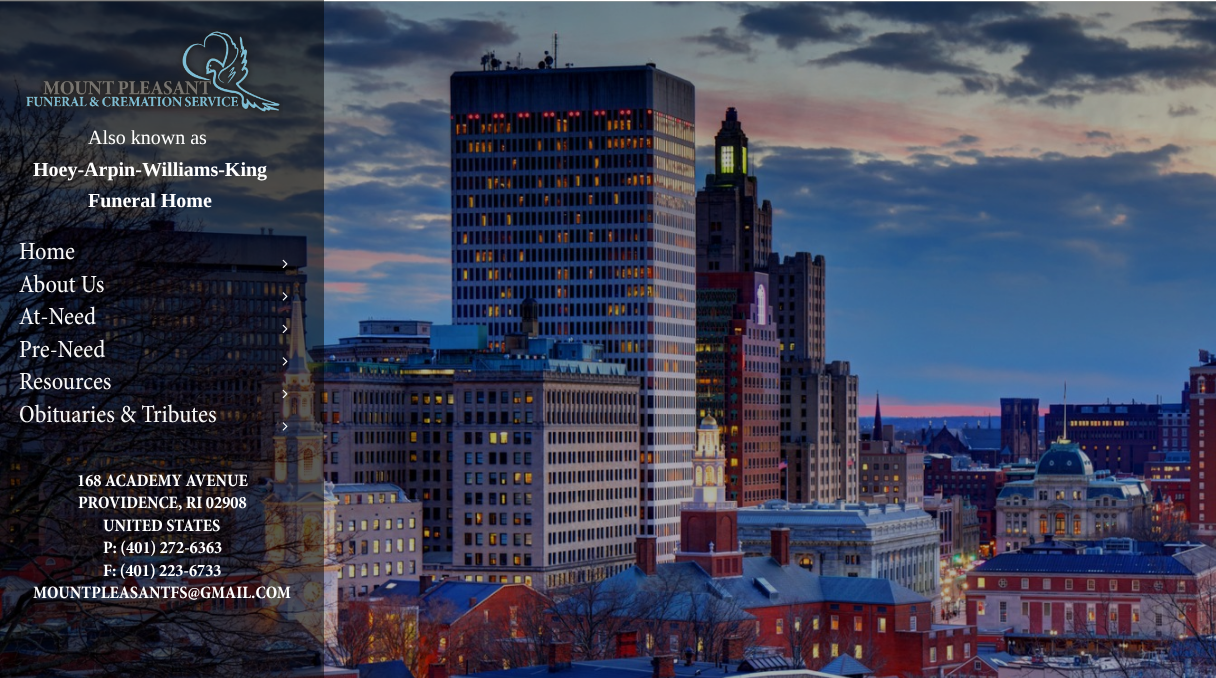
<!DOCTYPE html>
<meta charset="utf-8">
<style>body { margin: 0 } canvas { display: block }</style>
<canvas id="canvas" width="1216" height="678"></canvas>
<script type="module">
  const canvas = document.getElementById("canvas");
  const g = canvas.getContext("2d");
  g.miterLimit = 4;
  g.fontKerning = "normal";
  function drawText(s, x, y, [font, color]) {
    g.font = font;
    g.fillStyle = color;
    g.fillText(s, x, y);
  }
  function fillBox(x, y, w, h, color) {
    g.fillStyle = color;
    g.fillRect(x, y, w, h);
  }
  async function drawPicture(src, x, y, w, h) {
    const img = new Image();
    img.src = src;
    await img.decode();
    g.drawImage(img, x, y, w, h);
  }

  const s1 = ["20px Liberation Serif", "#FFFFFF"];
  const s2 = ["bold 20px Liberation Serif", "#FFFFFF"];
  const s3 = ["25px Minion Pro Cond", "#F8F8F8"];
  const s4 = ["bold 17.5px Minion Pro Cond", "#FFFFFF"];

  fillBox(0, 0, 1216, 678, "#FFFFFF");
  fillBox(0, 1, 1216, 1, "#B0B0A7");
  await drawPicture("pic1.png", 0, 1, 1216, 677);
  fillBox(0, 0, 324, 678, "rgba(0, 0, 0, 0.5)");
  await drawPicture("pic2.png", 22, 28, 261, 88);
  drawText("Also known as", 88, 144, s1);
  drawText("Hoey-Arpin-Williams-King", 33, 176, s2);
  drawText("Funeral Home", 88, 207, s2);
  drawText("Home", 19, 259, s3);
  await drawPicture("pic3.png", 282, 259, 6, 10);
  drawText("About Us", 19, 292, s3);
  await drawPicture("pic4.png", 282, 292, 6, 9);
  drawText("At-Need", 19, 324, s3);
  await drawPicture("pic5.png", 282, 324, 6, 10);
  drawText("Pre-Need", 19, 357, s3);
  await drawPicture("pic6.png", 282, 357, 6, 9);
  drawText("Resources", 19, 389, s3);
  await drawPicture("pic7.png", 282, 389, 6, 10);
  drawText("Obituaries & Tributes", 19, 422, s3);
  await drawPicture("pic8.png", 282, 422, 6, 9);
  drawText("168 ACADEMY AVENUE", 77, 486, s4);
  drawText("PROVIDENCE, RI 02908", 78, 508, s4);
  drawText("UNITED STATES", 103, 531, s4);
  drawText("P: (401) 272-6363", 103, 553, s4);
  drawText("F: (401) 223-6733", 103, 576, s4);
  drawText("MOUNTPLEASANTFS@GMAIL.COM", 33, 598, s4);
</script>
